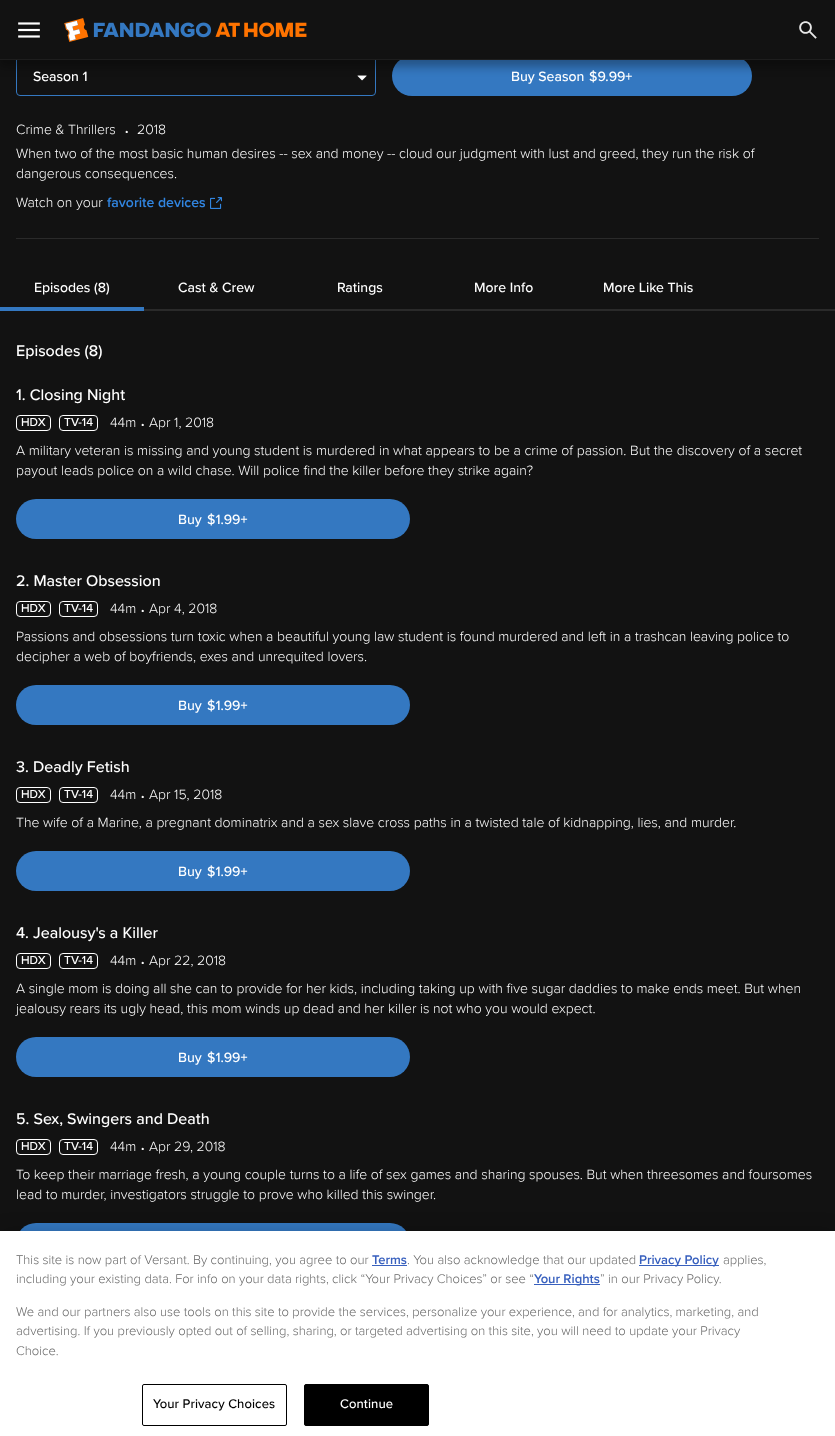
<!DOCTYPE html>
<meta charset="utf-8">
<style>body { margin: 0 } canvas { display: block }</style>
<canvas id="canvas" width="835" height="1436"></canvas>
<script type="module">
  const canvas = document.getElementById("canvas");
  const g = canvas.getContext("2d");
  g.miterLimit = 4;
  g.fontKerning = "normal";
  function drawText(s, x, y, [font, color]) {
    g.font = font;
    g.fillStyle = color;
    g.fillText(s, x, y);
  }
  function fillBox(x, y, w, h, color) {
    g.fillStyle = color;
    g.fillRect(x, y, w, h);
  }
  function fillRounded(x, y, w, h, r, color) {
    g.fillStyle = color;
    g.beginPath();
    g.roundRect(x, y, w, h, r);
    g.fill();
  }
  async function drawPicture(src, x, y, w, h) {
    const img = new Image();
    img.src = src;
    await img.decode();
    g.drawImage(img, x, y, w, h);
  }

  const s1 = ["500 14px Proxima Nova", "#FFFFFF"];
  const s2 = ["300 14px Proxima Nova", "#FFFFFF"];
  const s3 = ["300 25px Proxima Nova", "#FFFFFF"];
  const s4 = ["600 14px Proxima Nova", "#3185E0"];
  const s5 = ["500 16px Proxima Nova", "#FFFFFF"];
  const s6 = ["500 12px Proxima Nova", "#FFFFFF"];
  const s7 = ["300 13px Proxima Nova", "#696969"];
  const s8 = ["600 13px Proxima Nova", "#3860BE"];
  const s9 = ["500 13px Proxima Nova", "#000000"];
  const s10 = ["500 13px Proxima Nova", "#FFFFFF"];

  fillBox(0, 0, 835, 1436, "#121212");
  g.beginPath();
  g.roundRect(16.5, 56.5, 359, 39, 3.5);
  g.strokeStyle = "#3478C1";
  g.stroke();
  await drawPicture("pic4.png", 357, 75, 10, 6);
  fillRounded(392, 56, 360, 40, 20, "#3478C1");
  g.fillStyle = "rgba(0, 0, 0, 0.3)";
  g.filter = "blur(5px)";
  g.beginPath();
  g.rect(-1, -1, 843, 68);
  g.fill();
  g.filter = "none";
  fillBox(0, 0, 835, 59, "#121212");
  fillBox(0, 59, 835, 1, "#1E1E1E");
  await drawPicture("pic1.png", 18, 22, 22, 16);
  await drawPicture("pic2.png", 64, 18, 243, 24);
  await drawPicture("pic3.png", 799, 21, 18, 18);
  drawText("Season 1", 33, 81, s1);
  drawText("Buy Season", 511, 81, s1);
  drawText("$9.99+", 589, 81, s1);
  fillBox(16, 238, 803, 1, "#2A2A2A");
  drawText("Crime & Thrillers", 16, 134, s2);
  drawText("·", 124, 138, s3);
  drawText("2018", 137, 134, s2);
  drawText("When two of the most basic human desires -- sex and money -- cloud our judgment with lust and greed, they run the risk of", 16, 158, s2);
  drawText("dangerous consequences.", 16, 178, s2);
  drawText("Watch on your", 16, 207, s2);
  drawText("favorite devices", 107, 207, s4);
  await drawPicture("pic5.png", 210, 197, 12, 12);
  fillBox(0, 307, 144, 4, "#3478C1");
  drawText("Episodes (8)", 34, 292, s1);
  drawText("Cast & Crew", 178, 292, s1);
  drawText("Ratings", 337, 292, s1);
  drawText("More Info", 474, 292, s1);
  drawText("More Like This", 603, 292, s1);
  fillBox(144, 309, 691, 2, "#2A2A2A");
  drawText("Episodes (8)", 16, 356, s5);
  drawText("1. Closing Night", 16, 400, s5);
  g.beginPath();
  g.roundRect(16.5, 415.5, 34, 15, 3.5);
  g.strokeStyle = "#FFFFFF";
  g.stroke();
  drawText("HDX", 21, 426, s6);
  g.beginPath();
  g.roundRect(59.5, 415.5, 38, 15, 3.5);
  g.stroke();
  drawText("TV-14", 64, 426, s6);
  drawText("44m", 110, 427, s2);
  drawText("·", 140, 431, s3);
  drawText("Apr 1, 2018", 149, 427, s2);
  drawText("A military veteran is missing and young student is murdered in what appears to be a crime of passion. But the discovery of a secret", 16, 455, s2);
  drawText("payout leads police on a wild chase. Will police find the killer before they strike again?", 16, 475, s2);
  fillRounded(16, 499, 394, 40, 20, "#3478C1");
  drawText("Buy", 178, 524, s1);
  drawText("$1.99+", 207, 524, s1);
  drawText("2. Master Obsession", 16, 586, s5);
  g.beginPath();
  g.roundRect(16.5, 601.5, 34, 15, 3.5);
  g.stroke();
  drawText("HDX", 21, 612, s6);
  g.beginPath();
  g.roundRect(59.5, 601.5, 38, 15, 3.5);
  g.stroke();
  drawText("TV-14", 64, 612, s6);
  drawText("44m", 110, 613, s2);
  drawText("·", 140, 617, s3);
  drawText("Apr 4, 2018", 149, 613, s2);
  drawText("Passions and obsessions turn toxic when a beautiful young law student is found murdered and left in a trashcan leaving police to", 16, 641, s2);
  drawText("decipher a web of boyfriends, exes and unrequited lovers.", 16, 661, s2);
  fillRounded(16, 685, 394, 40, 20, "#3478C1");
  drawText("Buy", 178, 710, s1);
  drawText("$1.99+", 207, 710, s1);
  drawText("3. Deadly Fetish", 16, 772, s5);
  g.beginPath();
  g.roundRect(16.5, 787.5, 34, 15, 3.5);
  g.stroke();
  drawText("HDX", 21, 798, s6);
  g.beginPath();
  g.roundRect(59.5, 787.5, 38, 15, 3.5);
  g.stroke();
  drawText("TV-14", 64, 798, s6);
  drawText("44m", 110, 799, s2);
  drawText("·", 140, 803, s3);
  drawText("Apr 15, 2018", 149, 799, s2);
  drawText("The wife of a Marine, a pregnant dominatrix and a sex slave cross paths in a twisted tale of kidnapping, lies, and murder.", 16, 827, s2);
  fillRounded(16, 851, 394, 40, 20, "#3478C1");
  drawText("Buy", 178, 876, s1);
  drawText("$1.99+", 207, 876, s1);
  drawText("4. Jealousy's a Killer", 16, 938, s5);
  g.beginPath();
  g.roundRect(16.5, 953.5, 34, 15, 3.5);
  g.stroke();
  drawText("HDX", 21, 964, s6);
  g.beginPath();
  g.roundRect(59.5, 953.5, 38, 15, 3.5);
  g.stroke();
  drawText("TV-14", 64, 964, s6);
  drawText("44m", 110, 965, s2);
  drawText("·", 140, 969, s3);
  drawText("Apr 22, 2018", 149, 965, s2);
  drawText("A single mom is doing all she can to provide for her kids, including taking up with five sugar daddies to make ends meet. But when", 16, 993, s2);
  drawText("jealousy rears its ugly head, this mom winds up dead and her killer is not who you would expect.", 16, 1013, s2);
  fillRounded(16, 1037, 394, 40, 20, "#3478C1");
  drawText("Buy", 178, 1062, s1);
  drawText("$1.99+", 207, 1062, s1);
  drawText("5. Sex, Swingers and Death", 16, 1124, s5);
  g.beginPath();
  g.roundRect(16.5, 1139.5, 34, 15, 3.5);
  g.stroke();
  drawText("HDX", 21, 1150, s6);
  g.beginPath();
  g.roundRect(59.5, 1139.5, 38, 15, 3.5);
  g.stroke();
  drawText("TV-14", 64, 1150, s6);
  drawText("44m", 110, 1151, s2);
  drawText("·", 140, 1155, s3);
  drawText("Apr 29, 2018", 149, 1151, s2);
  drawText("To keep their marriage fresh, a young couple turns to a life of sex games and sharing spouses. But when threesomes and foursomes", 16, 1179, s2);
  drawText("lead to murder, investigators struggle to prove who killed this swinger.", 16, 1199, s2);
  fillRounded(16, 1223, 394, 40, 20, "#3478C1");
  g.fillStyle = "rgba(0, 0, 0, 0.2)";
  g.filter = "blur(9px)";
  g.beginPath();
  g.rect(0, 1231, 835, 205);
  g.fill();
  g.filter = "none";
  fillBox(0, 1231, 835, 205, "#FFFFFF");
  drawText("This site is now part of Versant. By continuing, you agree to our", 16, 1264, s7);
  drawText("Terms", 372, 1264, s8);
  fillBox(372, 1265, 35, 1, "#3860BE");
  drawText(". You also acknowledge that our updated", 407, 1264, s7);
  fillBox(639, 1265, 80, 1, "#3860BE");
  drawText("Privacy Policy", 639, 1264, s8);
  drawText("applies,", 723, 1264, s7);
  drawText("including your existing data. For info on your data rights, click “Your Privacy Choices” or see “", 16, 1283, s7);
  fillBox(534, 1284, 66, 1, "#3860BE");
  drawText("Your Rights", 534, 1283, s8);
  drawText("” in our Privacy Policy.", 600, 1283, s7);
  drawText("We and our partners also use tools on this site to provide the services, personalize your experience, and for analytics, marketing, and", 16, 1316, s7);
  drawText("advertising. If you previously opted out of selling, sharing, or targeted advertising on this site, you will need to update your Privacy", 16, 1335, s7);
  drawText("Choice.", 16, 1355, s7);
  g.beginPath();
  g.roundRect(142.5, 1384.5, 144, 41, 1.5);
  g.strokeStyle = "#000000";
  g.stroke();
  g.letterSpacing = "0.1px";
  drawText("Your Privacy Choices", 153, 1408, s9);
  g.beginPath();
  g.roundRect(304.5, 1384.5, 124, 41, 1.5);
  g.fill();
  g.stroke();
  drawText("Continue", 340, 1408, s10);
</script>
